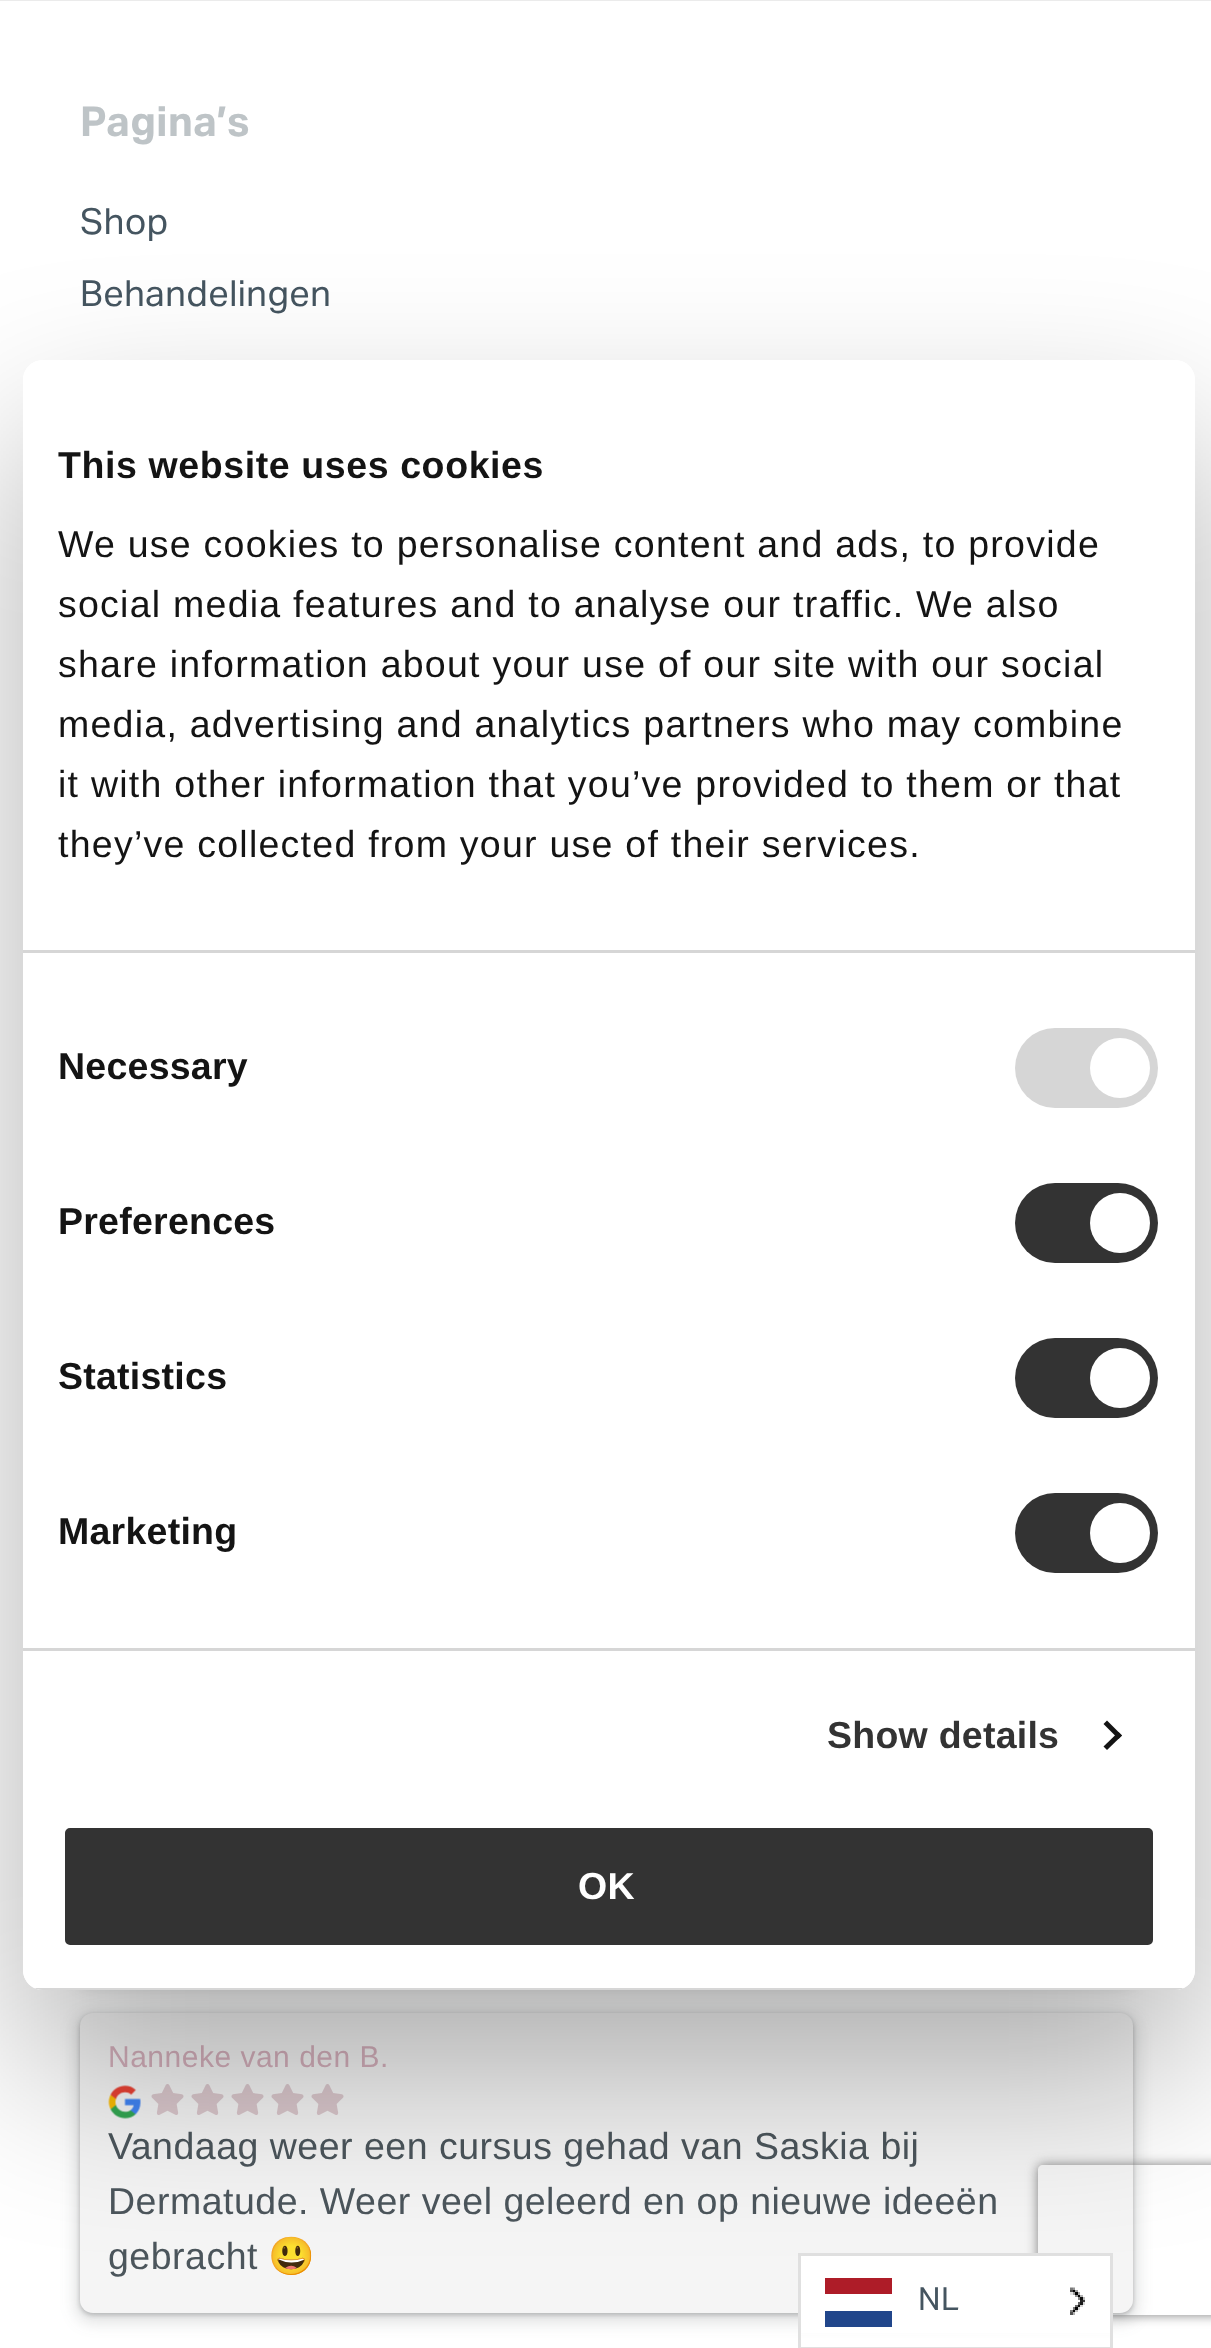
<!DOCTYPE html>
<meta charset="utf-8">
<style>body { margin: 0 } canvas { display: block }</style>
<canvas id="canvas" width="1211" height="2348"></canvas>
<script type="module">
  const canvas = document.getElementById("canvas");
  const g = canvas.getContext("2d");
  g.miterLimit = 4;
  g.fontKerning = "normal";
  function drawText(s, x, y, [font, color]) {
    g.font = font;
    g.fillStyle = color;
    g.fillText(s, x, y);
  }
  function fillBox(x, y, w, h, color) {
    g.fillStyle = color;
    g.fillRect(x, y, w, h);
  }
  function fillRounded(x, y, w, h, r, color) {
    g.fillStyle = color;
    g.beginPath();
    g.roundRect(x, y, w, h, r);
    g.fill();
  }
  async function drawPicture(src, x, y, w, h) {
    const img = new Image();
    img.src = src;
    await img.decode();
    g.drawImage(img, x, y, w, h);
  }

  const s1 = ["bold 41.5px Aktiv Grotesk", "#BEC4C7"];
  const s2 = ["36px Aktiv Grotesk", "#455560"];
  const s3 = ["30px Liberation Sans", "#D6B1BD"];
  const s4 = ["37.5px Liberation Sans", "#4C565C"];
  const s5 = ["37.5px Noto Color Emoji", "#4C565C"];
  const s6 = ["bold 37.5px Liberation Sans", "#141414"];
  const s7 = ["37.5px Liberation Sans", "#141414"];
  const s8 = ["bold 37.5px Liberation Sans", "#333333"];
  const s9 = ["bold 37.5px Liberation Sans", "#FFFFFF"];
  const s10 = ["32px Aktiv Grotesk", "#455560"];

  fillBox(0, 0, 1211, 2348, "#FFFFFF");
  fillBox(0, 0, 1211, 1, "#EBEBEB");
  g.letterSpacing = "0.5px";
  drawText("Pagina’s", 80, 136, s1);
  drawText("Shop", 80, 234, s2);
  drawText("Behandelingen", 80, 306, s2);
  g.fillStyle = "rgba(60, 64, 67, 0.15)";
  g.filter = "blur(7.5px)";
  g.beginPath();
  g.roundRect(75, 1733, 1063, 255, 18);
  g.fill();
  g.filter = "none";
  g.filter = "blur(7.5px)";
  g.beginPath();
  g.roundRect(75, 2013, 1063, 310, 18);
  g.fill();
  g.filter = "none";
  g.fillStyle = "rgba(60, 64, 67, 0.3)";
  g.filter = "blur(2.5px)";
  g.beginPath();
  g.roundRect(80, 2015, 1053, 300, 13);
  g.fill();
  g.filter = "none";
  fillRounded(80, 2013, 1053, 300, 13, "#F5F5F5");
  drawText("Nanneke van den B.", 108, 2067, s3);
  await drawPicture("pic1.png", 108, 2085, 33, 34);
  await drawPicture("pic2.png", 151, 2084, 33, 31);
  await drawPicture("pic2.png", 191, 2084, 33, 31);
  await drawPicture("pic3.png", 231, 2084, 33, 31);
  await drawPicture("pic2.png", 271, 2084, 33, 31);
  await drawPicture("pic2.png", 311, 2084, 33, 31);
  drawText("Vandaag weer een cursus gehad van Saskia bij", 108, 2159, s4);
  drawText("Dermatude. Weer veel geleerd en op nieuwe ideeën", 108, 2214, s4);
  drawText("gebracht", 108, 2269, s4);
  drawText("😃", 268, 2269, s5);
  g.save();
  g.beginPath();
  g.moveTo(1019, 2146);
  g.lineTo(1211, 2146);
  g.lineTo(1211, 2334);
  g.lineTo(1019, 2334);
  g.closePath();
  g.moveTo(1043, 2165);
  g.lineTo(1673, 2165);
  g.bezierCurveTo(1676, 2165, 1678, 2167, 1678, 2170);
  g.lineTo(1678, 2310);
  g.bezierCurveTo(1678, 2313, 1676, 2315, 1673, 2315);
  g.lineTo(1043, 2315);
  g.bezierCurveTo(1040, 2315, 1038, 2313, 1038, 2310);
  g.lineTo(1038, 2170);
  g.bezierCurveTo(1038, 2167, 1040, 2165, 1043, 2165);
  g.closePath();
  g.clip("evenodd");
  g.fillStyle = "#808080";
  g.filter = "blur(6px)";
  g.beginPath();
  g.roundRect(1038, 2165, 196, 150, 5);
  g.fill();
  g.filter = "none";
  g.restore();
  fillBox(801, 2256, 309, 77, "#FFFFFF");
  g.strokeStyle = "#E0E0E0";
  g.lineWidth = 3;
  g.strokeRect(799.5, 2254.5, 312, 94);
  fillBox(825, 2278, 67, 16, "#AE1C28");
  fillBox(825, 2311, 67, 16, "#21468B");
  await drawPicture("pic4.png", 1070, 2287, 15, 28);
  g.save();
  g.beginPath();
  g.moveTo(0, 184);
  g.lineTo(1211, 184);
  g.lineTo(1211, 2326);
  g.lineTo(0, 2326);
  g.closePath();
  g.moveTo(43, 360);
  g.lineTo(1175, 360);
  g.bezierCurveTo(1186, 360, 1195, 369, 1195, 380);
  g.lineTo(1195, 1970);
  g.bezierCurveTo(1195, 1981, 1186, 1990, 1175, 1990);
  g.lineTo(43, 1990);
  g.bezierCurveTo(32, 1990, 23, 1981, 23, 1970);
  g.lineTo(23, 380);
  g.bezierCurveTo(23, 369, 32, 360, 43, 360);
  g.closePath();
  g.clip("evenodd");
  g.fillStyle = "rgba(0, 0, 0, 0.3)";
  g.filter = "blur(85px)";
  g.beginPath();
  g.roundRect(23, 440, 1172, 1630, 20);
  g.fill();
  g.filter = "none";
  g.restore();
  fillRounded(23, 360, 1172, 1630, 20, "#FFFFFF");
  fillBox(23, 950, 1172, 3, "#D6D6D6");
  g.letterSpacing = "0.6px";
  drawText("This website uses cookies", 58, 478, s6);
  g.letterSpacing = "1.25px";
  drawText("We use cookies to personalise content and ads, to provide", 58, 557, s7);
  drawText("social media features and to analyse our traffic. We also", 58, 617, s7);
  drawText("share information about your use of our site with our social", 58, 677, s7);
  drawText("media, advertising and analytics partners who may combine", 58, 737, s7);
  drawText("it with other information that you’ve provided to them or that", 58, 797, s7);
  drawText("they’ve collected from your use of their services.", 58, 857, s7);
  fillBox(23, 1648, 1172, 3, "#D6D6D6");
  g.letterSpacing = "0.25px";
  drawText("Necessary", 58, 1079, s6);
  fillRounded(1015, 1028, 143, 80, 40, "#D6D6D6");
  g.fillStyle = "#FFFFFF";
  g.beginPath();
  g.arc(1120, 1068, 30, 0, Math.PI * 2);
  g.fill();
  drawText("Preferences", 58, 1234, s6);
  fillRounded(1015, 1183, 143, 80, 40, "#333333");
  g.fillStyle = "#FFFFFF";
  g.beginPath();
  g.arc(1120, 1223, 30, 0, Math.PI * 2);
  g.fill();
  drawText("Statistics", 58, 1389, s6);
  fillRounded(1015, 1338, 143, 80, 40, "#333333");
  g.fillStyle = "#FFFFFF";
  g.beginPath();
  g.arc(1120, 1378, 30, 0, Math.PI * 2);
  g.fill();
  drawText("Marketing", 58, 1544, s6);
  fillRounded(1015, 1493, 143, 80, 40, "#333333");
  g.fillStyle = "#FFFFFF";
  g.beginPath();
  g.arc(1120, 1533, 30, 0, Math.PI * 2);
  g.fill();
  drawText("Show details", 827, 1748, s8);
  g.fillStyle = "#141414";
  g.beginPath();
  g.moveTo(1107, 1720.5);
  g.lineTo(1122, 1735.5);
  g.lineTo(1118.5, 1739);
  g.lineTo(1103.5, 1724);
  g.closePath();
  g.fill();
  g.beginPath();
  g.moveTo(1118.5, 1732);
  g.lineTo(1122, 1735.5);
  g.lineTo(1107, 1750);
  g.lineTo(1103.5, 1746.5);
  g.closePath();
  g.fill();
  g.save();
  g.beginPath();
  g.roundRect(23, 360, 1172, 1630, 20);
  g.clip();
  fillBox(34, 1988, 1150, 2, "#D6D6D6");
  g.restore();
  g.fillStyle = "#333333";
  g.beginPath();
  g.roundRect(62.5, 1825.5, 1093, 122, 7.5);
  g.fill();
  g.strokeStyle = "#FFFFFF";
  g.lineWidth = 5;
  g.stroke();
  drawText("OK", 578, 1899, s9);
  g.letterSpacing = "0.5px";
  drawText("NL", 918, 2310, s10);
</script>
